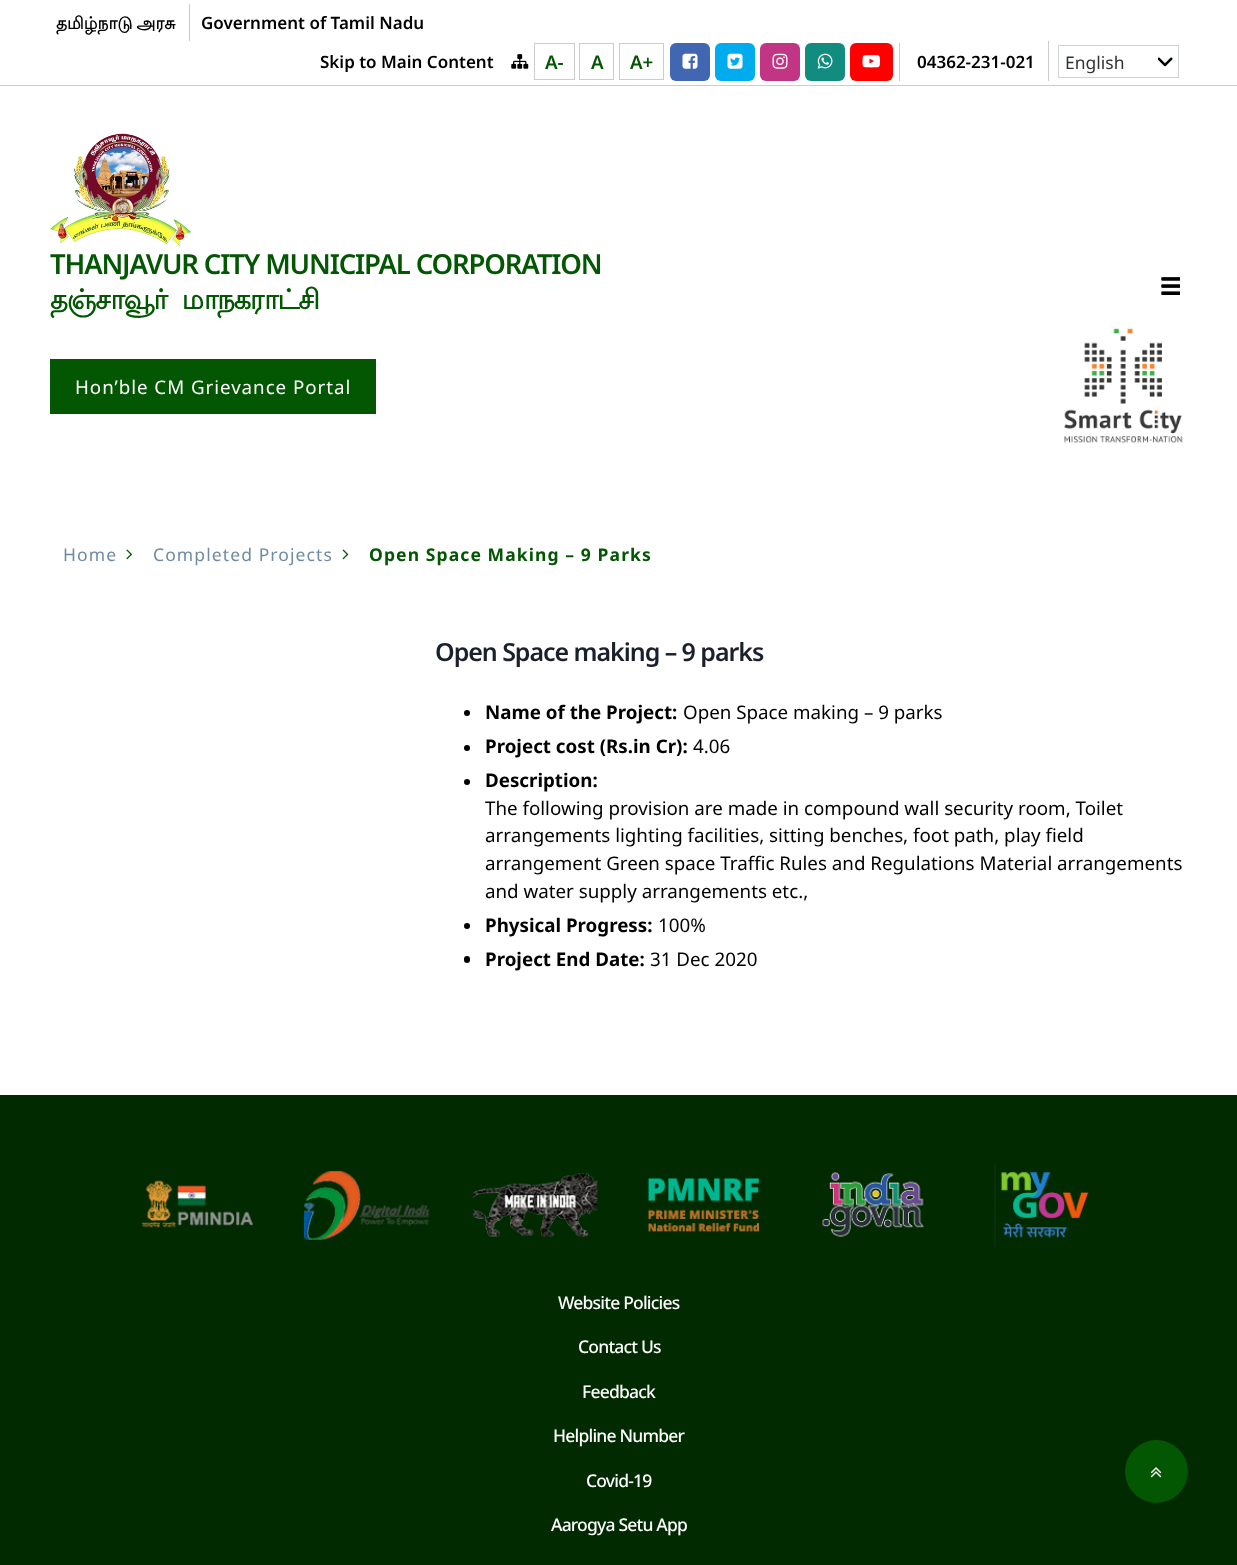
<!DOCTYPE html>
<meta charset="utf-8">
<style>body { margin: 0 } canvas { display: block }</style>
<canvas id="canvas" width="1237" height="1565"></canvas>
<script type="module">
  const canvas = document.getElementById("canvas");
  const g = canvas.getContext("2d");
  g.miterLimit = 4;
  g.fontKerning = "normal";
  function drawText(s, x, y, [font, color]) {
    g.font = font;
    g.fillStyle = color;
    g.fillText(s, x, y);
  }
  function fillBox(x, y, w, h, color) {
    g.fillStyle = color;
    g.fillRect(x, y, w, h);
  }
  function fillRounded(x, y, w, h, r, color) {
    g.fillStyle = color;
    g.beginPath();
    g.roundRect(x, y, w, h, r);
    g.fill();
  }
  async function drawPicture(src, x, y, w, h) {
    const img = new Image();
    img.src = src;
    await img.decode();
    g.drawImage(img, x, y, w, h);
  }

  const s1 = ["bold 17px Lohit Tamil", "#000000"];
  const s2 = ["600 17px Noto Sans", "#000000"];
  const s3 = ["600 18.75px Noto Sans", "#035703"];
  const s4 = ["17.5px Noto Sans", "#333333"];
  const s5 = ["600 27.5px Noto Sans", "#035703"];
  const s6 = ["bold 27.5px Lohit Tamil", "#035703"];
  const s7 = ["18.75px Noto Sans", "#FFFFFF"];
  const s8 = ["17.5px Noto Sans", "#6F8BA4"];
  const s9 = ["bold 17.5px Noto Sans", "#035703"];
  const s10 = ["600 25px Noto Sans", "#1A202C"];
  const s11 = ["bold 18.75px Noto Sans", "#000000"];
  const s12 = ["18.75px Noto Sans", "#000000"];
  const s13 = ["500 17.5px Noto Sans", "#FFFFFF"];

  fillBox(0, 0, 1237, 1565, "#FFFFFF");
  fillBox(0, 85, 1237, 1, "#CCCCCC");
  fillBox(189, 4, 1, 37, "#CCCCCC");
  g.wordSpacing = "-1px";
  drawText("தமிழ்நாடு அரசு", 56, 29, s1);
  g.wordSpacing = "0px";
  drawText("Government of Tamil Nadu", 201, 29, s2);
  drawText("Skip to Main Content", 320, 68, s2);
  await drawPicture("pic1.png", 511, 54, 18, 15);
  g.strokeStyle = "#CCCCCC";
  g.strokeRect(534.5, 43.5, 40, 36);
  drawText("A-", 545, 69, s3);
  g.strokeRect(579.5, 43.5, 34, 36);
  drawText("A", 591, 69, s3);
  g.strokeRect(619.5, 43.5, 44, 36);
  drawText("A+", 630, 69, s3);
  fillRounded(670, 43, 40, 38, 6, "#4267B2");
  await drawPicture("pic2.png", 682, 53, 16, 16);
  fillRounded(715, 43, 40, 38, 6, "#00ACEE");
  await drawPicture("pic3.png", 727, 53, 16, 16);
  fillRounded(760, 43, 40, 38, 6, "#C13584");
  await drawPicture("pic4.png", 772, 53, 16, 16);
  fillRounded(805, 43, 40, 38, 6, "#128C7E");
  await drawPicture("pic5.png", 817, 53, 16, 16);
  fillBox(899, 43, 1, 38, "#CCCCCC");
  fillRounded(850, 43, 43, 38, 6, "#FF0000");
  await drawPicture("pic6.png", 862, 55, 18, 13);
  drawText("04362-231-021", 917, 68, s2);
  fillBox(1048, 41, 1, 40, "#CCCCCC");
  await drawPicture("pic7.png", 1158, 57, 15, 10);
  g.strokeStyle = "#CED4DA";
  g.strokeRect(1058.5, 45.5, 120, 32);
  drawText("English", 1065, 69, s4);
  await drawPicture("pic8.png", 50, 133, 141, 113);
  g.letterSpacing = "-1.15px";
  drawText("THANJAVUR CITY MUNICIPAL CORPORATION", 50, 274, s5);
  g.wordSpacing = "8px";
  drawText("தஞ்சாவூர் மாநகராட்சி", 50, 309, s6);
  await drawPicture("pic9.png", 1161, 277, 19, 18);
  fillBox(50, 359, 326, 55, "#035703");
  g.letterSpacing = "0.95px";
  g.wordSpacing = "0px";
  drawText("Hon’ble CM Grievance Portal", 75, 394, s7);
  await drawPicture("pic10.png", 1064, 328, 119, 116);
  g.letterSpacing = "1.1px";
  drawText("Home", 63, 561, s8);
  await drawPicture("pic11.png", 126, 549, 6, 11);
  drawText("Completed Projects", 153, 561, s8);
  await drawPicture("pic12.png", 342, 549, 7, 11);
  drawText("Open Space Making – 9 Parks", 369, 561, s9);
  g.letterSpacing = "-1.05px";
  drawText("Open Space making – 9 parks", 435, 661, s10);
  g.fillStyle = "#000000";
  g.beginPath();
  g.arc(467, 713, 3, 0, Math.PI * 2);
  g.fill();
  g.letterSpacing = "0px";
  drawText("Name of the Project:", 485, 719, s11);
  drawText("Open Space making – 9 parks", 683, 719, s12);
  g.beginPath();
  g.arc(467, 748, 3, 0, Math.PI * 2);
  g.fill();
  drawText("Project cost (Rs.in Cr):", 485, 753, s11);
  drawText("4.06", 693, 753, s12);
  g.beginPath();
  g.arc(467, 782, 3, 0, Math.PI * 2);
  g.fill();
  drawText("Description:", 485, 787, s11);
  drawText("The following provision are made in compound wall security room, Toilet", 485, 815, s12);
  drawText("arrangements lighting facilities, sitting benches, foot path, play field", 485, 842, s12);
  drawText("arrangement Green space Traffic Rules and Regulations Material arrangements", 485, 870, s12);
  drawText("and water supply arrangements etc.,", 485, 898, s12);
  g.beginPath();
  g.arc(467, 926, 3, 0, Math.PI * 2);
  g.fill();
  drawText("Physical Progress:", 485, 932, s11);
  drawText("100%", 658, 932, s12);
  fillRounded(464, 956, 6, 7, 3, "#000000");
  drawText("Project End Date:", 485, 966, s11);
  drawText("31 Dec 2020", 650, 966, s12);
  fillBox(0, 1095, 1237, 470, "#012A01");
  await drawPicture("pic13.png", 141, 1180, 112, 48);
  await drawPicture("pic14.png", 303, 1171, 126, 69);
  await drawPicture("pic15.png", 472, 1173, 126, 64);
  await drawPicture("pic16.png", 648, 1178, 111, 54);
  await drawPicture("pic17.png", 822, 1172, 102, 65);
  await drawPicture("pic18.png", 994, 1163, 95, 84);
  g.letterSpacing = "-0.8px";
  drawText("Website Policies", 558, 1309, s13);
  drawText("Contact Us", 578, 1353, s13);
  drawText("Feedback", 582, 1398, s13);
  drawText("Helpline Number", 553, 1442, s13);
  drawText("Covid-19", 586, 1487, s13);
  drawText("Aarogya Setu App", 551, 1531, s13);
  g.fillStyle = "#035703";
  g.beginPath();
  g.arc(1156.5, 1471.5, 31.5, 0, Math.PI * 2);
  g.fill();
  await drawPicture("pic19.png", 1150, 1467, 12, 11);
</script>
